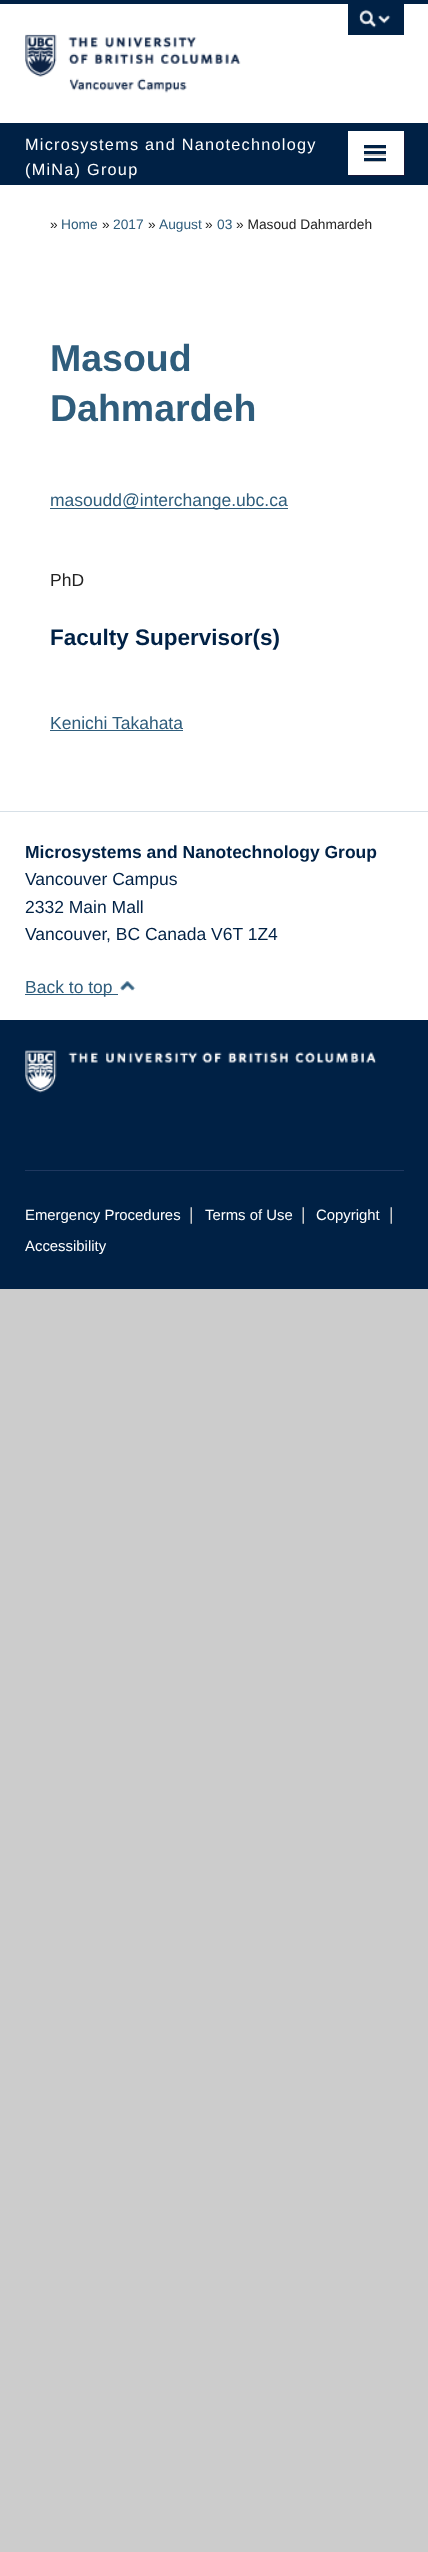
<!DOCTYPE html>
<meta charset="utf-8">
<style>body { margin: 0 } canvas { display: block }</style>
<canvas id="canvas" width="428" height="2552"></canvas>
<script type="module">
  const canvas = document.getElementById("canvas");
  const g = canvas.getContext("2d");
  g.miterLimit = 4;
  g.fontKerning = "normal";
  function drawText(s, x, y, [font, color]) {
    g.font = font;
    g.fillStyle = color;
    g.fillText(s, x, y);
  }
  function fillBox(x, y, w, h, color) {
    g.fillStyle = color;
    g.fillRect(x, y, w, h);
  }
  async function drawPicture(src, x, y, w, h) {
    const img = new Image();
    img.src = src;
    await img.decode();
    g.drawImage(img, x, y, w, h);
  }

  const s1 = ["16.25px Liberation Sans", "#FFFFFF"];
  const s2 = ["13.75px Liberation Sans", "#222222"];
  const s3 = ["13.75px Liberation Sans", "#2F5D7C"];
  const s4 = ["bold 37.5px Liberation Sans", "#2F5D7C"];
  const s5 = ["17.5px Liberation Sans", "#2F5D7C"];
  const s6 = ["17.5px Liberation Sans", "#222222"];
  const s7 = ["bold 22.5px Liberation Sans", "#002145"];
  const s8 = ["bold 17.5px Liberation Sans", "#002145"];
  const s9 = ["17.5px Liberation Sans", "#002145"];
  const s10 = ["14.9px Liberation Sans", "#FFFFFF"];
  const s11 = ["17.5px Liberation Sans", "#CCCCCC"];

  fillBox(0, 0, 428, 2552, "#CCCCCC");
  fillBox(0, 4, 428, 119, "#FFFFFF");
  fillBox(0, 0, 428, 4, "#002145");
  await drawPicture("pic1.png", 25, 34, 216, 43);
  fillBox(348, 4, 56, 31, "#002145");
  await drawPicture("pic2.png", 359, 9, 32, 19);
  await drawPicture("pic3.png", 69, 78, 118, 15);
  fillBox(0, 123, 428, 62, "#002145");
  g.letterSpacing = "1.25px";
  drawText("Microsystems and Nanotechnology", 25, 150, s1);
  drawText("(MiNa) Group", 25, 175, s1);
  g.fillStyle = "#191938";
  g.filter = "blur(0.5px)";
  g.beginPath();
  g.rect(349, 133, 56, 43);
  g.fill();
  g.filter = "none";
  fillBox(348, 131, 56, 44, "#FFFFFF");
  fillBox(364, 148, 22, 1, "#BFBFBF");
  fillBox(364, 145, 22, 3, "#002145");
  fillBox(364, 154, 22, 2, "#BFBFBF");
  fillBox(364, 151, 22, 3, "#002145");
  fillBox(364, 161, 22, 1, "#BFBFBF");
  fillBox(364, 158, 22, 3, "#002145");
  fillBox(0, 185, 428, 626, "#FFFFFF");
  g.letterSpacing = "0px";
  drawText("»", 50, 229, s2);
  drawText("Home", 61, 229, s3);
  drawText("»", 102, 229, s2);
  drawText("2017", 113, 229, s3);
  drawText("»", 148, 229, s2);
  drawText("August", 159, 229, s3);
  drawText("»", 205, 229, s2);
  drawText("03", 217, 229, s3);
  drawText("» Masoud Dahmardeh", 236, 229, s2);
  drawText("Masoud", 50, 371, s4);
  drawText("Dahmardeh", 50, 421, s4);
  fillBox(50, 508, 238, 1, "#2F5D7C");
  drawText("masoudd@interchange.ubc.ca", 50, 506, s5);
  drawText("PhD", 50, 586, s6);
  drawText("Faculty Supervisor(s)", 50, 645, s7);
  drawText("Kenichi Takahata", 50, 729, s5);
  fillBox(50, 730, 133, 1, "#2F5D7C");
  fillBox(0, 1020, 428, 269, "#002145");
  fillBox(0, 812, 428, 208, "#FFFFFF");
  fillBox(0, 811, 428, 1, "#D7E0E7");
  drawText("Microsystems and Nanotechnology Group", 25, 858, s8);
  drawText("Vancouver Campus", 25, 885, s9);
  drawText("2332 Main Mall", 25, 913, s9);
  drawText("Vancouver", 25, 940, s9);
  drawText(", BC Canada V6T 1Z4", 106, 940, s9);
  fillBox(25, 994, 93, 1, "#2F5D7C");
  drawText("Back to top", 25, 993, s5);
  await drawPicture("pic4.png", 120, 981, 16, 10);
  await drawPicture("pic5.png", 25, 1050, 352, 43);
  fillBox(25, 1170, 379, 1, "#1F385F");
  drawText("Emergency Procedures", 25, 1220, s10);
  drawText("|", 189, 1220, s11);
  drawText("Terms of Use", 205, 1220, s10);
  drawText("|", 301, 1220, s11);
  drawText("Copyright", 316, 1220, s10);
  drawText("|", 389, 1220, s11);
  drawText("Accessibility", 25, 1251, s10);
</script>
